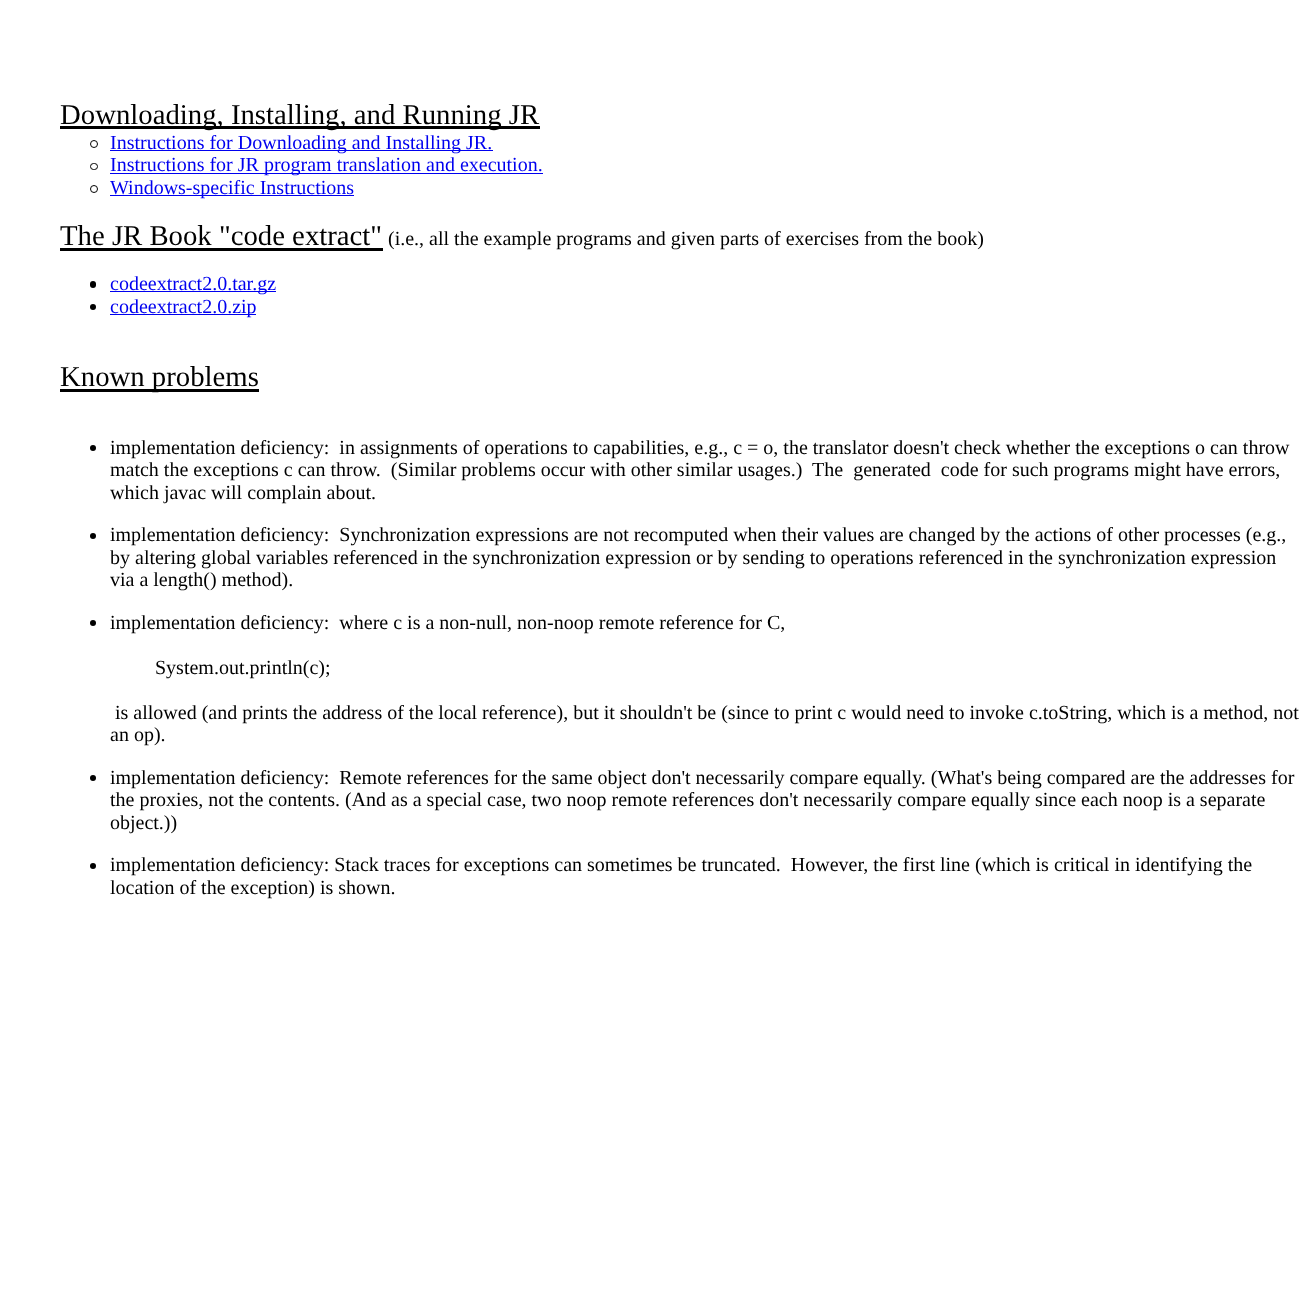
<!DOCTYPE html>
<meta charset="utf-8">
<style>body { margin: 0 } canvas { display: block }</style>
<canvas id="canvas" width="1314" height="1302"></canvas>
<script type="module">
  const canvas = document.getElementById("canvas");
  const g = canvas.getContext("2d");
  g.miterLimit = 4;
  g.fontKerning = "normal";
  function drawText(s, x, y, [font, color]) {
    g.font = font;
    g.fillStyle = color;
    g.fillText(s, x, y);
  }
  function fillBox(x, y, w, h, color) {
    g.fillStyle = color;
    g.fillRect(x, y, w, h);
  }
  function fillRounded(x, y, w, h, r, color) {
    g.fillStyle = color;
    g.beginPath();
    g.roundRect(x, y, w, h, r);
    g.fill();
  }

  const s1 = ["28.75px Liberation Serif", "#000000"];
  const s2 = ["20px Liberation Serif", "#0000EF"];
  const s3 = ["20px Liberation Serif", "#000000"];

  fillBox(0, 0, 1314, 1302, "#FFFFFF");
  fillBox(60, 126, 480, 3, "#000000");
  drawText("Downloading, Installing, and Running JR", 60, 124, s1);
  g.beginPath();
  g.arc(94, 144, 3.5, 0, Math.PI * 2);
  g.strokeStyle = "#000000";
  g.stroke();
  fillBox(110, 150, 383, 1, "#0000EF");
  drawText("Instructions for Downloading and Installing JR.", 110, 149, s2);
  g.beginPath();
  g.roundRect(90.5, 163.5, 7, 6, 3);
  g.stroke();
  fillBox(110, 173, 433, 1, "#0000EF");
  drawText("Instructions for JR program translation and execution.", 110, 171, s2);
  g.beginPath();
  g.arc(94, 189, 3.5, 0, Math.PI * 2);
  g.stroke();
  fillBox(110, 195, 244, 1, "#0000EF");
  drawText("Windows-specific Instructions", 110, 194, s2);
  drawText("The JR Book \"code extract\"", 60, 245, s1);
  fillBox(60, 248, 323, 3, "#000000");
  drawText("(i.e., all the example programs and given parts of exercises from the book)", 388, 245, s3);
  fillRounded(90, 281, 6, 7, 3, "#000000");
  fillBox(110, 291, 166, 1, "#0000EF");
  drawText("codeextract2.0.tar.gz", 110, 290, s2);
  g.fillStyle = "#000000";
  g.beginPath();
  g.arc(93, 307, 3, 0, Math.PI * 2);
  g.fill();
  fillBox(110, 314, 146, 1, "#0000EF");
  drawText("codeextract2.0.zip", 110, 313, s2);
  fillBox(60, 389, 199, 3, "#000000");
  drawText("Known problems", 60, 386, s1);
  g.beginPath();
  g.arc(93, 448, 3, 0, Math.PI * 2);
  g.fill();
  drawText("implementation deficiency:  in assignments of operations to capabilities, e.g., c = o, the translator doesn't check whether the exceptions o can throw", 110, 454, s3);
  drawText("match the exceptions c can throw.  (Similar problems occur with other similar usages.)  The  generated  code for such programs might have errors,", 110, 476, s3);
  drawText("which javac will complain about.", 110, 499, s3);
  g.beginPath();
  g.arc(93, 536, 3, 0, Math.PI * 2);
  g.fill();
  drawText("implementation deficiency:  Synchronization expressions are not recomputed when their values are changed by the actions of other processes (e.g.,", 110, 541, s3);
  drawText("by altering global variables referenced in the synchronization expression or by sending to operations referenced in the synchronization expression", 110, 564, s3);
  drawText("via a length() method).", 110, 586, s3);
  g.beginPath();
  g.arc(93, 623, 3, 0, Math.PI * 2);
  g.fill();
  drawText("implementation deficiency:  where c is a non-null, non-noop remote reference for C,", 110, 629, s3);
  drawText("System.out.println(c);", 155, 674, s3);
  drawText("is allowed (and prints the address of the local reference), but it shouldn't be (since to print c would need to invoke c.toString, which is a method, not", 115, 719, s3);
  drawText("an op).", 110, 741, s3);
  g.beginPath();
  g.arc(93, 778, 3, 0, Math.PI * 2);
  g.fill();
  drawText("implementation deficiency:  Remote references for the same object don't necessarily compare equally. (What's being compared are the addresses for", 110, 784, s3);
  drawText("the proxies, not the contents. (And as a special case, two noop remote references don't necessarily compare equally since each noop is a separate", 110, 806, s3);
  drawText("object.))", 110, 829, s3);
  g.beginPath();
  g.arc(93, 866, 3, 0, Math.PI * 2);
  g.fill();
  drawText("implementation deficiency: Stack traces for exceptions can sometimes be truncated.  However, the first line (which is critical in identifying the", 110, 871, s3);
  drawText("location of the exception) is shown.", 110, 894, s3);
</script>
